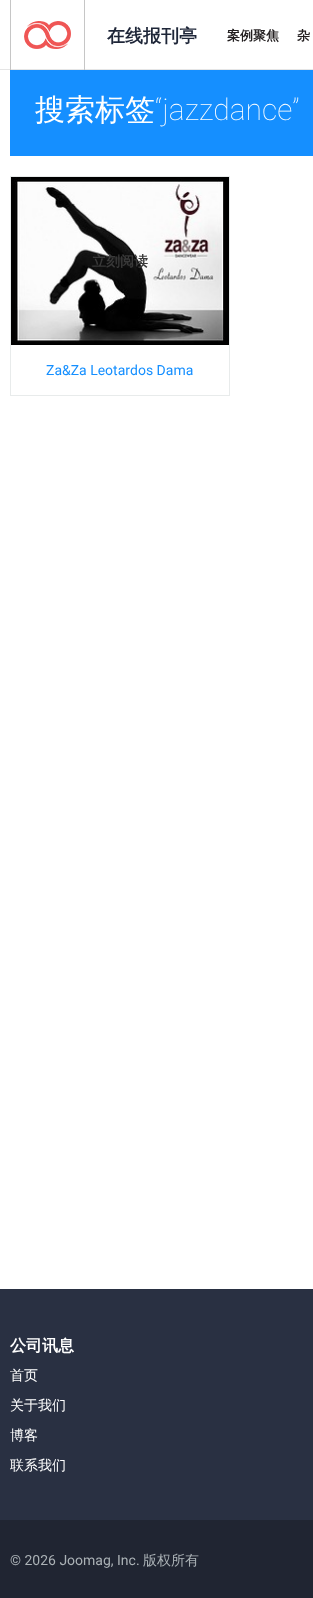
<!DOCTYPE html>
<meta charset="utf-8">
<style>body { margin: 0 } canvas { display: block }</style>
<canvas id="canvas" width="313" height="1598"></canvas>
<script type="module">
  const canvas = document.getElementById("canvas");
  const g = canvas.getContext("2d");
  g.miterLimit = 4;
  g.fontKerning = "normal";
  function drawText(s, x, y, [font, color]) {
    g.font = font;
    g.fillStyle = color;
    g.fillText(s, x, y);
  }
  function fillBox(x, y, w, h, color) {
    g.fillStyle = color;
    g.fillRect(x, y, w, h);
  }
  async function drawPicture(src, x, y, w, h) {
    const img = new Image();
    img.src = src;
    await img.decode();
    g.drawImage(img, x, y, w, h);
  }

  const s1 = ["bold 18px WenQuanYi Zen Hei", "#1E2638"];
  const s2 = ["bold 13px WenQuanYi Zen Hei", "#231F20"];
  const s3 = ["500 30px WenQuanYi Zen Hei", "#FFFFFF"];
  const s4 = ["100 30px Roboto", "#FFFFFF"];
  const s5 = ["bold 14px WenQuanYi Zen Hei", "#393939"];
  const s6 = ["14px Roboto", "#158FFF"];
  const s7 = ["bold 16px WenQuanYi Zen Hei", "#FFFFFF"];
  const s8 = ["500 14px WenQuanYi Zen Hei", "#FFFFFF"];
  const s9 = ["14px Roboto", "#ABB2B6"];
  const s10 = ["500 14px WenQuanYi Zen Hei", "#ABB2B6"];

  fillBox(0, 0, 313, 1598, "#FFFFFF");
  fillBox(0, 69, 313, 1, "#E5E5E5");
  fillBox(84, 0, 1, 70, "#C6C6C6");
  fillBox(10, 0, 1, 70, "#C6C6C6");
  await drawPicture("pic1.png", 24, 21, 47, 28);
  drawText("在线报刊亭", 107, 42, s1);
  drawText("案例聚焦", 227, 40, s2);
  drawText("杂", 297, 40, s2);
  fillBox(10, 70, 303, 86, "#158FFF");
  drawText("搜索标签", 35, 120, s3);
  drawText("“jazzdance”", 155, 120, s4);
  g.strokeStyle = "#E8EBEB";
  g.strokeRect(10.5, 176.5, 219, 219);
  await drawPicture("pic2.png", 11, 177, 218, 168);
  drawText("立刻阅读", 92, 266, s5);
  drawText("Za&Za Leotardos Dama", 46, 375, s6);
  fillBox(0, 1289, 313, 231, "#293042");
  drawText("公司讯息", 10, 1351, s7);
  drawText("首页", 10, 1380, s8);
  drawText("关于我们", 10, 1410, s8);
  drawText("博客", 10, 1440, s8);
  drawText("联系我们", 10, 1470, s8);
  fillBox(0, 1520, 313, 78, "#202532");
  drawText("© 2026 Joomag, Inc.", 10, 1565, s9);
  drawText("版权所有", 143, 1565, s10);
</script>
